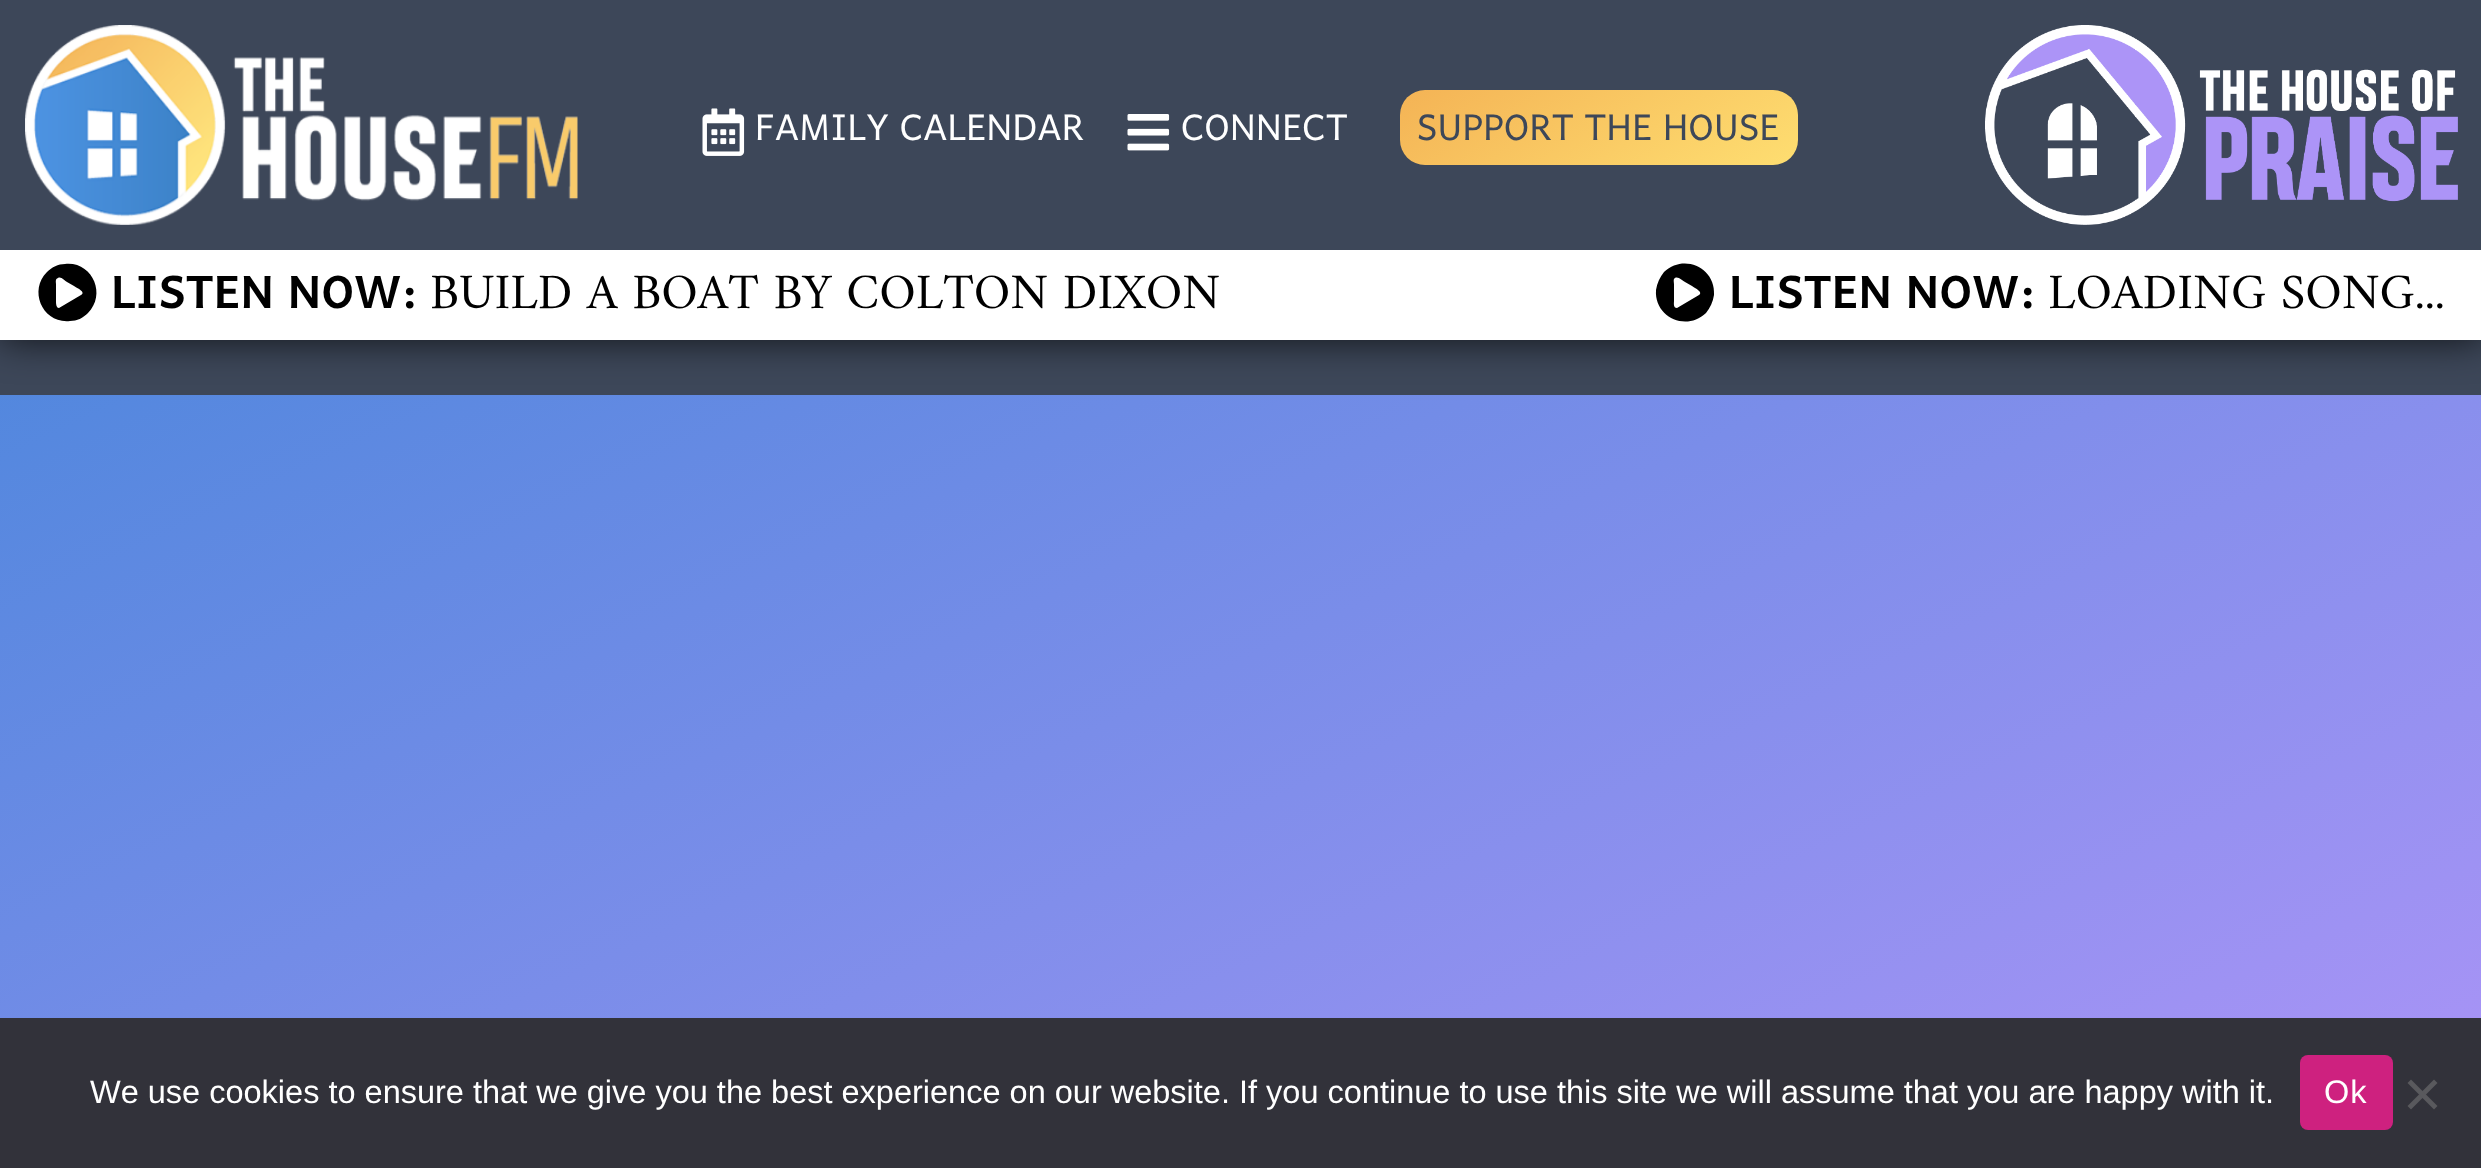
<!DOCTYPE html>
<meta charset="utf-8">
<style>body { margin: 0 } canvas { display: block }</style>
<canvas id="canvas" width="2481" height="1168"></canvas>
<script type="module">
  const canvas = document.getElementById("canvas");
  const g = canvas.getContext("2d");
  g.miterLimit = 4;
  g.fontKerning = "none";
  function drawText(s, x, y, [font, color]) {
    g.font = font;
    g.fillStyle = color;
    g.fillText(s, x, y);
  }
  function fillBox(x, y, w, h, color) {
    g.fillStyle = color;
    g.fillRect(x, y, w, h);
  }
  function fillRounded(x, y, w, h, r, color) {
    g.fillStyle = color;
    g.beginPath();
    g.roundRect(x, y, w, h, r);
    g.fill();
  }
  async function drawPicture(src, x, y, w, h) {
    const img = new Image();
    img.src = src;
    await img.decode();
    g.drawImage(img, x, y, w, h);
  }
  let gradient;

  const s1 = ["47.5px Harmattan", "#FFFFFF"];
  const s2 = ["47.5px Harmattan", "#3D4759"];
  const s3 = ["bold 60px Harmattan", "#000000"];
  const s4 = ["50px Amiri", "#000000"];
  const s5 = ["32.5px Liberation Sans", "#FFFFFF"];

  fillBox(0, 0, 2481, 1168, "#FFFFFF");
  gradient = g.createLinearGradient(790, -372, 1692, 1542);
  gradient.addColorStop(0, "#4185D9");
  gradient.addColorStop(1, "#AC94F7");
  g.fillStyle = gradient;
  g.fillRect(0, 395, 2481, 623);
  fillBox(0, 340, 2481, 55, "#3D4759");
  g.fillStyle = "rgba(0, 0, 0, 0.75)";
  g.filter = "blur(19px)";
  g.beginPath();
  g.rect(0, 0, 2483, 340);
  g.fill();
  g.filter = "none";
  fillBox(0, 0, 2481, 250, "#3D4759");
  await drawPicture("pic1.png", 25, 25, 553, 200);
  await drawPicture("pic2.png", 702, 108, 43, 48);
  drawText("FAMILY CALENDAR", 755, 140, s1);
  await drawPicture("pic3.png", 1127, 114, 43, 37);
  drawText("CONNECT", 1181, 140, s1);
  gradient = g.createLinearGradient(1526, 11, 1671, 244);
  gradient.addColorStop(0, "#F4B355");
  gradient.addColorStop(1, "#FEDE71");
  g.fillStyle = gradient;
  g.beginPath();
  g.roundRect(1400, 90, 398, 75, 25);
  g.fill();
  drawText("SUPPORT THE HOUSE", 1417, 140, s2);
  await drawPicture("pic4.png", 1985, 25, 473, 200);
  fillBox(0, 250, 2481, 90, "#FFFFFF");
  g.fillStyle = "#000000";
  g.beginPath();
  g.moveTo(47, 272);
  g.bezierCurveTo(52, 267, 58, 264, 65, 264);
  g.bezierCurveTo(92, 261, 107, 294, 88, 313);
  g.bezierCurveTo(83, 318, 77, 321, 70, 321);
  g.bezierCurveTo(43, 324, 28, 291, 47, 272);
  g.closePath();
  g.moveTo(81, 295);
  g.bezierCurveTo(87, 292, 75, 287, 74, 286);
  g.lineTo(67, 282);
  g.bezierCurveTo(65, 281, 61, 276, 58, 278);
  g.bezierCurveTo(55, 279, 56, 282, 56, 284);
  g.lineTo(56, 301);
  g.bezierCurveTo(56, 303, 56, 308, 59, 308);
  g.closePath();
  g.fill();
  drawText("LISTEN NOW:", 111, 308, s3);
  drawText("BUILD A BOAT BY COLTON DIXON", 430, 308, s4);
  g.beginPath();
  g.moveTo(1664, 272);
  g.bezierCurveTo(1684, 253, 1716, 268, 1714, 295);
  g.bezierCurveTo(1713, 302, 1710, 308, 1706, 313);
  g.bezierCurveTo(1686, 332, 1654, 317, 1656, 290);
  g.bezierCurveTo(1657, 283, 1660, 277, 1664, 272);
  g.closePath();
  g.moveTo(1699, 295);
  g.bezierCurveTo(1704, 292, 1693, 287, 1692, 286);
  g.lineTo(1685, 282);
  g.bezierCurveTo(1683, 281, 1678, 276, 1675, 278);
  g.bezierCurveTo(1673, 279, 1674, 282, 1674, 284);
  g.lineTo(1674, 301);
  g.bezierCurveTo(1674, 303, 1673, 308, 1677, 308);
  g.closePath();
  g.fill();
  drawText("LISTEN NOW:", 1729, 308, s3);
  drawText("LOADING SONG...", 2048, 308, s4);
  fillBox(0, 1018, 2481, 150, "#32323A");
  drawText("We use cookies to ensure that we give you the best experience on our website. If you continue to use this site we will assume that you are happy with it.", 90, 1103, s5);
  fillRounded(2300, 1055, 93, 75, 8, "#CE217F");
  g.letterSpacing = "1px";
  drawText("Ok", 2324, 1103, s5);
  g.fillStyle = "#59595D";
  g.beginPath();
  g.moveTo(2434, 1079.5);
  g.lineTo(2437.5, 1083);
  g.lineTo(2411, 1109.5);
  g.lineTo(2407.5, 1106);
  g.closePath();
  g.fill();
  g.beginPath();
  g.moveTo(2407.5, 1083);
  g.lineTo(2411, 1079.5);
  g.lineTo(2437.5, 1106);
  g.lineTo(2434, 1109.5);
  g.closePath();
  g.fill();
</script>
